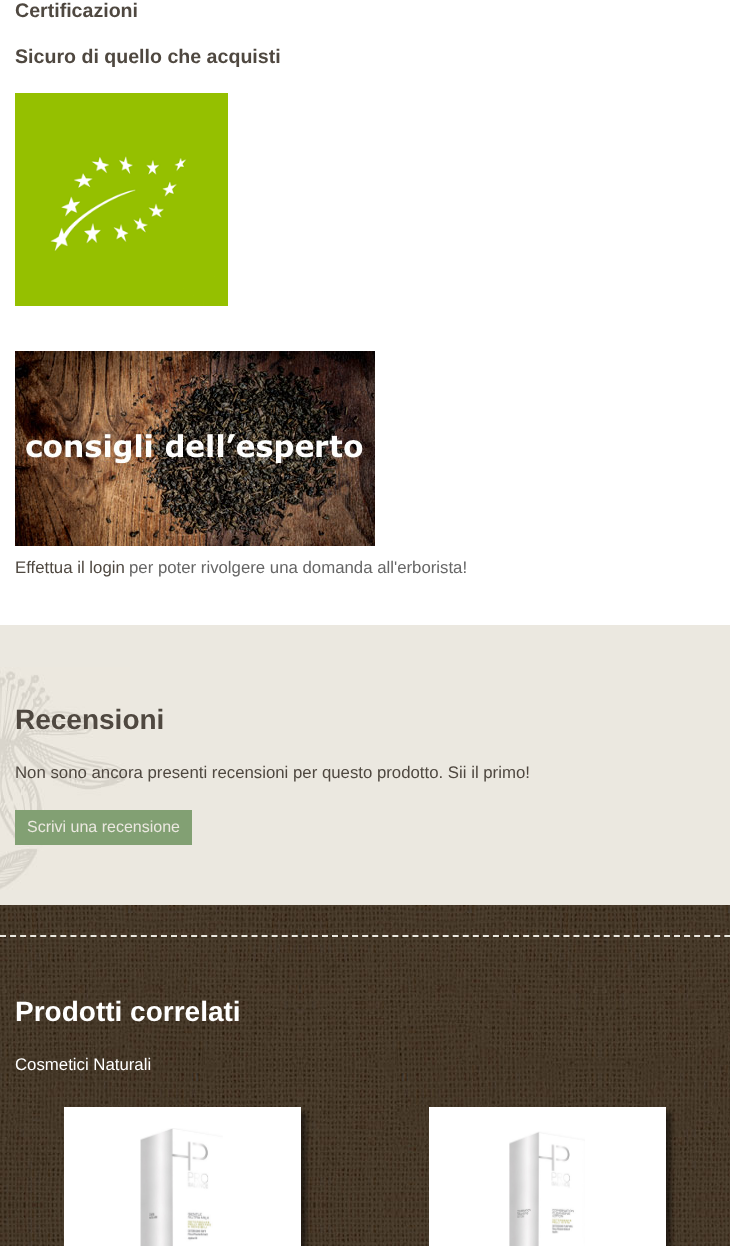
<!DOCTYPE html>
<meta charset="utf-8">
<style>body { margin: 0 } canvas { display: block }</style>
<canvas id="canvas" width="730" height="1246"></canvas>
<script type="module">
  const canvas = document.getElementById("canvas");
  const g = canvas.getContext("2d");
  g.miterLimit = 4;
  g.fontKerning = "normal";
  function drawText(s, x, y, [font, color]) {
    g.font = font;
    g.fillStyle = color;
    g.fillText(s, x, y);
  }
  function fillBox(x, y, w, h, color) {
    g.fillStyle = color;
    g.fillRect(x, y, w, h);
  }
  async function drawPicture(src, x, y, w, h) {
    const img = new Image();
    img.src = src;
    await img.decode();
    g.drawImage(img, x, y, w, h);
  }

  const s1 = ["bold 19.6px Liberation Sans", "#4F4840"];
  const s2 = ["16.8px Liberation Sans", "#4F4840"];
  const s3 = ["16.8px Liberation Sans", "#666666"];
  const s4 = ["bold 28px Liberation Sans", "#4F4840"];
  const s5 = ["16px Liberation Sans", "#EBE8E0"];
  const s6 = ["bold 28px Liberation Sans", "#FFFFFF"];
  const s7 = ["16.8px Liberation Sans", "#FFFFFF"];

  fillBox(0, 0, 730, 1246, "#FFFFFF");
  drawText("Certificazioni", 15, 17, s1);
  drawText("Sicuro di quello che acquisti", 15, 63, s1);
  await drawPicture("pic1.png", 15, 93, 213, 213);
  await drawPicture("pic2.png", 15, 351, 360, 195);
  drawText("Effettua il login", 15, 573, s2);
  drawText("per poter rivolgere una domanda all'erborista!", 129, 573, s3);
  fillBox(0, 625, 730, 280, "#EBE8E0");
  await drawPicture("pic3.png", 0, 667, 130, 223);
  drawText("Recensioni", 15, 729, s4);
  drawText("Non sono ancora presenti recensioni per questo prodotto. Sii il primo!", 15, 778, s2);
  fillBox(15, 810, 177, 35, "#82A073");
  drawText("Scrivi una recensione", 27, 832, s5);
  await drawPicture("pic4.png", 0, 905, 730, 341);
  g.beginPath();
  g.moveTo(0, 936);
  g.lineTo(730, 936);
  g.strokeStyle = "#EBE8E0";
  g.lineWidth = 2;
  g.setLineDash([6, 4.06]);
  g.stroke();
  drawText("Prodotti correlati", 15, 1021, s6);
  drawText("Cosmetici Naturali", 15, 1070, s7);
  g.fillStyle = "rgba(0, 0, 0, 0.5)";
  g.filter = "blur(2.5px)";
  g.beginPath();
  g.rect(69, 1112, 237, 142);
  g.fill();
  g.filter = "none";
  fillBox(64, 1107, 237, 139, "#FFFFFF");
  await drawPicture("pic5.png", 140, 1128, 83, 118);
  g.fillStyle = "rgba(0, 0, 0, 0.5)";
  g.filter = "blur(2.5px)";
  g.beginPath();
  g.rect(434, 1112, 237, 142);
  g.fill();
  g.filter = "none";
  fillBox(429, 1107, 237, 139, "#FFFFFF");
  await drawPicture("pic6.png", 509, 1131, 76, 115);
</script>
